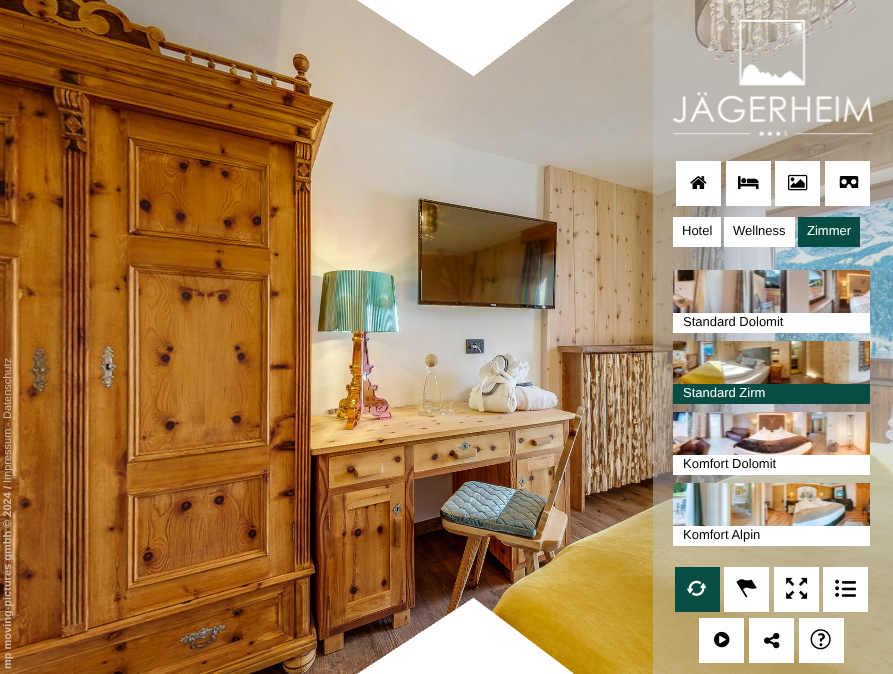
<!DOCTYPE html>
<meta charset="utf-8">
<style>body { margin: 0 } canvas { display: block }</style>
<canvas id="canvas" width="893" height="674"></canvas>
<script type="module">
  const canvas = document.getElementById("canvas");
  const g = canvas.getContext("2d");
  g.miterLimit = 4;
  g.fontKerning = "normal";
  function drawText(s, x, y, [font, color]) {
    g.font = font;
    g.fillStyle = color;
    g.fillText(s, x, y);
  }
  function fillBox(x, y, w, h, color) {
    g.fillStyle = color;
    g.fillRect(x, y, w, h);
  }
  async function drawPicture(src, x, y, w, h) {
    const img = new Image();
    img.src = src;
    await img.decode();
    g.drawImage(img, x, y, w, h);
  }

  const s1 = ["22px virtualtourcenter", "#000000"];
  const s2 = ["13px Liberation Sans", "#000000"];
  const s3 = ["13px Liberation Sans", "#FFFFFF"];

  fillBox(0, 0, 893, 674, "#FFFFFF");
  await drawPicture("pic1.png", 0, 0, 893, 674);
  g.font = "11px Liberation Sans";
  g.fillStyle = "#D2B9A5";
  g.save();
  g.translate(11, 419);
  g.rotate(-90 * Math.PI / 180);
  g.fillText("Datenschutz", 0, 0);
  g.restore();
  g.save();
  g.translate(11, 426);
  g.rotate(-90 * Math.PI / 180);
  g.fillText("-", 0, 0);
  g.restore();
  g.save();
  g.translate(11, 483);
  g.rotate(-90 * Math.PI / 180);
  g.fillText("Impressum", 0, 0);
  g.restore();
  g.font = "bold 11px Liberation Sans";
  g.fillStyle = "#D0B59F";
  g.save();
  g.translate(11, 489);
  g.rotate(-90 * Math.PI / 180);
  g.fillText("/", 0, 0);
  g.restore();
  g.fillStyle = "#D2B9A5";
  g.save();
  g.translate(11, 669);
  g.rotate(-90 * Math.PI / 180);
  g.fillText("mp moving-pictures gmbh © 2024", 0, 0);
  g.restore();
  fillBox(653, 0, 240, 674, "rgba(191, 191, 191, 0.5)");
  await drawPicture("pic2.png", 673, 20, 200, 116);
  fillBox(676, 161, 45, 45, "#FFFFFF");
  await drawPicture("pic3.png", 690, 176, 17, 13);
  fillBox(726, 161, 45, 45, "#FFFFFF");
  await drawPicture("pic4.png", 738, 176, 21, 13);
  fillBox(775, 161, 45, 45, "#FFFFFF");
  await drawPicture("pic5.png", 788, 174, 20, 17);
  fillBox(825, 161, 45, 45, "#FFFFFF");
  drawText(")", 838, 193, s1);
  fillBox(673, 217, 48, 30, "#FFFFFF");
  drawText("Hotel", 682, 235, s2);
  fillBox(724, 217, 71, 30, "#FFFFFF");
  drawText("Wellness", 733, 235, s2);
  fillBox(798, 217, 62, 30, "#084D44");
  drawText("Zimmer", 807, 235, s3);
  await drawPicture("pic6.png", 673, 270, 197, 43);
  fillBox(673, 313, 197, 20, "#FFFFFF");
  drawText("Standard Dolomit", 683, 326, s2);
  await drawPicture("pic7.png", 673, 341, 197, 43);
  fillBox(673, 384, 197, 20, "#084D44");
  drawText("Standard Zirm", 683, 397, s3);
  await drawPicture("pic8.png", 673, 412, 197, 43);
  fillBox(673, 455, 197, 20, "#FFFFFF");
  drawText("Komfort Dolomit", 683, 468, s2);
  await drawPicture("pic9.png", 673, 483, 197, 43);
  fillBox(673, 526, 197, 20, "#FFFFFF");
  drawText("Komfort Alpin", 683, 539, s2);
  fillBox(675, 567, 45, 45, "#084D44");
  await drawPicture("pic10.png", 687, 580, 20, 16);
  fillBox(724, 567, 45, 45, "#FFFFFF");
  await drawPicture("pic11.png", 736, 579, 21, 19);
  fillBox(774, 567, 45, 45, "#FFFFFF");
  await drawPicture("pic12.png", 786, 577, 22, 22);
  fillBox(823, 567, 45, 45, "#FFFFFF");
  await drawPicture("pic13.png", 835, 579, 22, 18);
  fillBox(699, 618, 45, 45, "#FFFFFF");
  await drawPicture("pic14.png", 714, 631, 16, 17);
  fillBox(749, 618, 45, 45, "#FFFFFF");
  await drawPicture("pic15.png", 764, 632, 16, 17);
  fillBox(799, 618, 45, 45, "#FFFFFF");
  await drawPicture("pic16.png", 810, 629, 21, 21);
</script>
